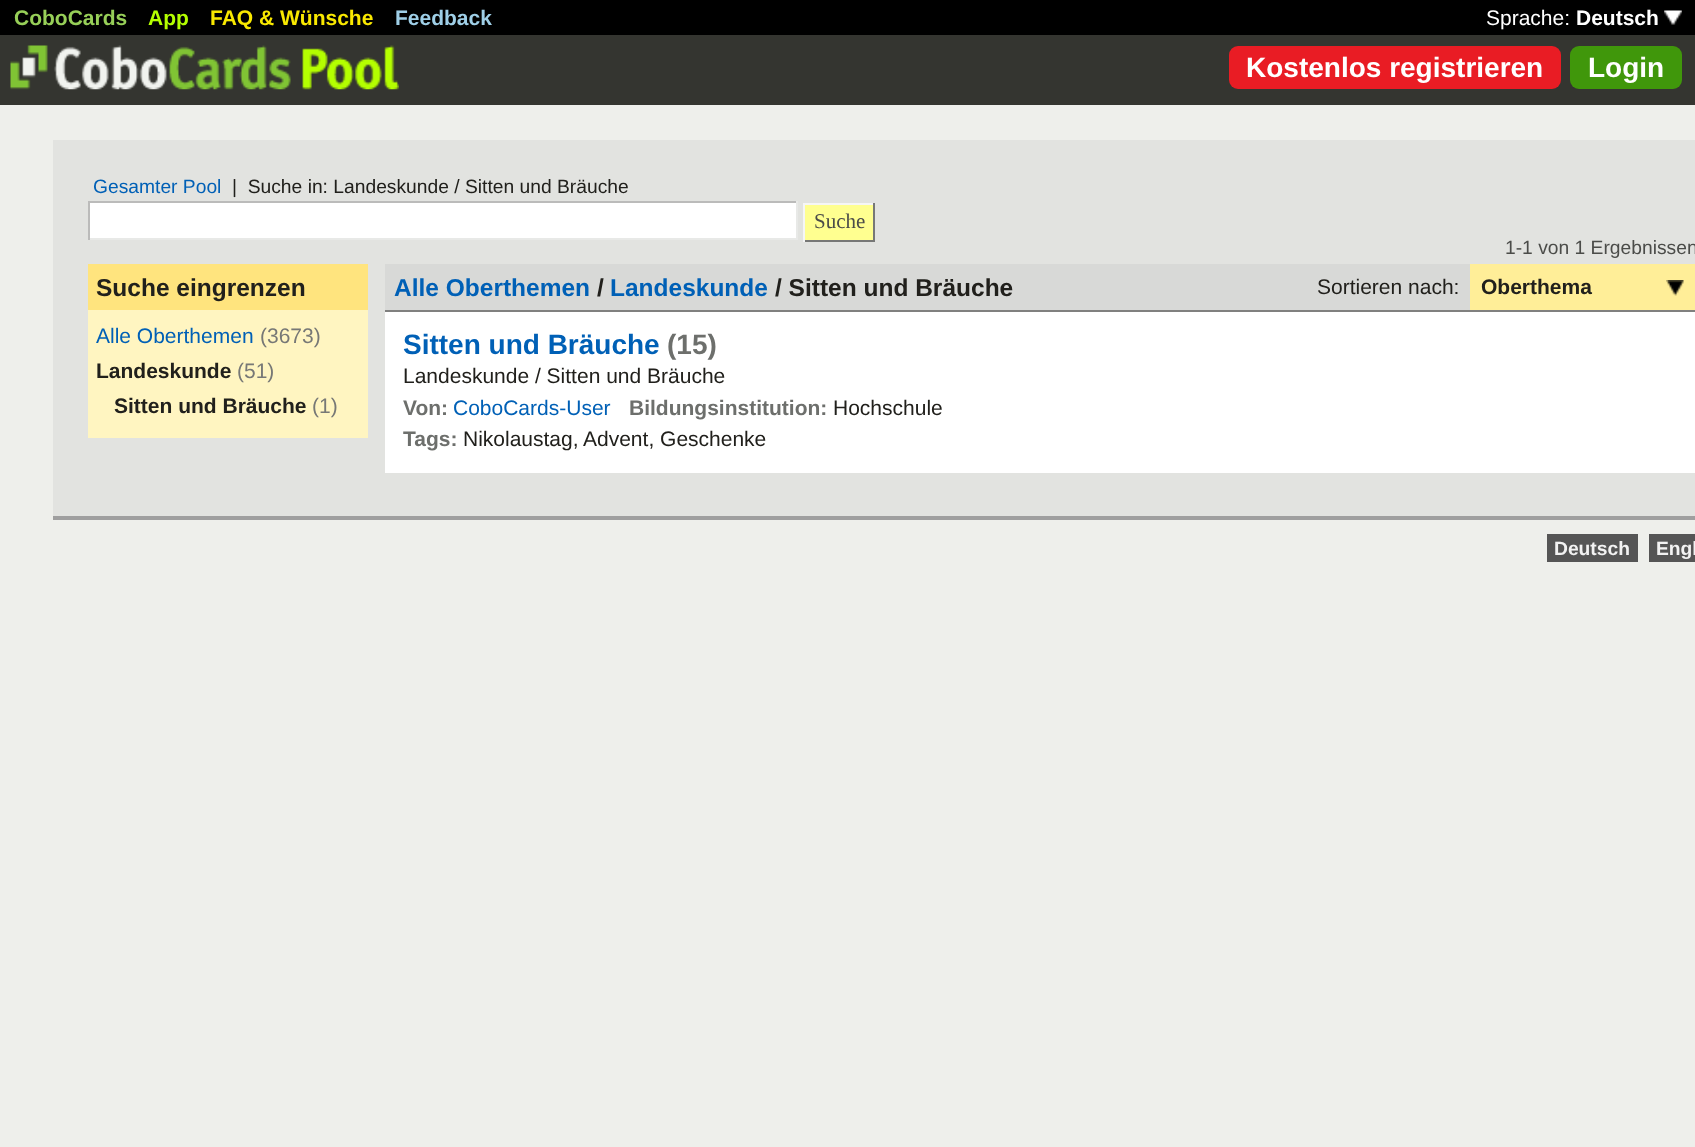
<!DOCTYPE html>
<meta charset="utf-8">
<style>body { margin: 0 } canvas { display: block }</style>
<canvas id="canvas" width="1695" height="1147"></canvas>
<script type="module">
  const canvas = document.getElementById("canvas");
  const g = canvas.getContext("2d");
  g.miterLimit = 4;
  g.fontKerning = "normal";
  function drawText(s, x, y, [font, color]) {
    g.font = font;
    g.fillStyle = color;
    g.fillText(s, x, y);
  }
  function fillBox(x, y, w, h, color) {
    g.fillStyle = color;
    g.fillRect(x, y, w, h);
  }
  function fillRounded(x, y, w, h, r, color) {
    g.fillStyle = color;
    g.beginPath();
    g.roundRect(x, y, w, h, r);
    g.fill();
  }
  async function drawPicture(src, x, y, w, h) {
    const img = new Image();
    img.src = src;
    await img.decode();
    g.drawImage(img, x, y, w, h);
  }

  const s1 = ["bold 21px Liberation Sans", "#97CF58"];
  const s2 = ["bold 21px Liberation Sans", "#B4FF00"];
  const s3 = ["bold 21px Liberation Sans", "#F9E800"];
  const s4 = ["bold 21px Liberation Sans", "#9FCFE7"];
  const s5 = ["21px Liberation Sans", "#FFFFFF"];
  const s6 = ["bold 21px Liberation Sans", "#FFFFFF"];
  const s7 = ["bold 28px Liberation Sans", "#FFFFFF"];
  const s8 = ["19.25px Liberation Sans", "#0060B6"];
  const s9 = ["19.25px Liberation Sans", "#21201C"];
  const s10 = ["21px Liberation Serif", "#4B4C49"];
  const s11 = ["bold 24.5px Liberation Sans", "#21201C"];
  const s12 = ["21px Liberation Sans", "#0060B6"];
  const s13 = ["21px Liberation Sans", "#777876"];
  const s14 = ["bold 21px Liberation Sans", "#21201C"];
  const s15 = ["19.25px Liberation Sans", "#4B4C49"];
  const s16 = ["bold 24.5px Liberation Sans", "#0060B6"];
  const s17 = ["21px Liberation Sans", "#21201C"];
  const s18 = ["bold 28px Liberation Sans", "#0060B6"];
  const s19 = ["bold 28px Liberation Sans", "#6D6F6C"];
  const s20 = ["bold 21px Liberation Sans", "#6D6F6C"];
  const s21 = ["bold 19.25px Liberation Sans", "#F2F2F2"];

  fillBox(0, 0, 1695, 1147, "#EEEFEB");
  fillBox(0, 35, 1695, 70, "#343530");
  fillBox(0, 0, 1695, 35, "#000000");
  drawText("CoboCards", 14, 25, s1);
  drawText("App", 148, 25, s2);
  drawText("FAQ & Wünsche", 210, 25, s3);
  drawText("Feedback", 395, 25, s4);
  drawText("Sprache:", 1486, 25, s5);
  drawText("Deutsch", 1576, 25, s6);
  await drawPicture("pic1.png", 1664, 10, 18, 15);
  await drawPicture("pic2.png", 10, 45, 389, 45);
  fillRounded(1229, 46, 332, 43, 9, "#E91C24");
  drawText("Kostenlos registrieren", 1246, 77, s7);
  fillRounded(1570, 46, 112, 43, 9, "#40970B");
  drawText("Login", 1588, 77, s7);
  fillBox(53, 140, 1642, 376, "#E2E3E0");
  fillBox(53, 516, 1642, 4, "#9F9F9F");
  drawText("Gesamter Pool", 93, 193, s8);
  drawText("|  Suche in: Landeskunde / Sitten und Bräuche", 232, 193, s9);
  fillBox(90, 203, 706, 35, "#FFFFFF");
  fillBox(88, 201, 710, 2, "#BBBBBA");
  fillBox(796, 201, 2, 39, "#E8E9E7");
  fillBox(88, 238, 710, 2, "#E8E9E7");
  fillBox(88, 201, 2, 39, "#BBBBBA");
  fillBox(805, 205, 68, 35, "#FFFF90");
  fillBox(803, 203, 72, 2, "#F6F6F6");
  fillBox(873, 203, 2, 39, "#777876");
  fillBox(803, 240, 72, 2, "#777876");
  fillBox(803, 203, 2, 39, "#F6F6F6");
  drawText("Suche", 814, 228, s10);
  fillBox(88, 264, 280, 46, "#FFE47E");
  drawText("Suche eingrenzen", 96, 296, s11);
  fillBox(88, 310, 280, 128, "#FFF5C1");
  drawText("Alle Oberthemen", 96, 343, s12);
  drawText("(3673)", 260, 343, s13);
  drawText("Landeskunde", 96, 378, s14);
  drawText("(51)", 237, 378, s13);
  drawText("Sitten und Bräuche", 114, 413, s14);
  drawText("(1)", 312, 413, s13);
  drawText("1-1 von 1 Ergebnissen", 1505, 254, s15);
  fillBox(385, 264, 1085, 46, "#D8D9D7");
  fillBox(385, 310, 1310, 2, "#80807F");
  drawText("Alle Oberthemen", 394, 296, s16);
  drawText("/", 597, 296, s11);
  drawText("Landeskunde", 610, 296, s16);
  drawText("/ Sitten und Bräuche", 775, 296, s11);
  drawText("Sortieren nach:", 1317, 294, s17);
  fillBox(1470, 264, 225, 46, "#FFEE98");
  drawText("Oberthema", 1481, 294, s14);
  await drawPicture("pic3.png", 1666, 280, 18, 16);
  fillBox(385, 312, 1310, 161, "#FFFFFF");
  drawText("Sitten und Bräuche", 403, 354, s18);
  drawText("(15)", 667, 354, s19);
  drawText("Landeskunde / Sitten und Bräuche", 403, 383, s17);
  drawText("Von:", 403, 415, s20);
  drawText("CoboCards-User", 453, 415, s12);
  drawText("Bildungsinstitution:", 629, 415, s20);
  drawText("Hochschule", 833, 415, s17);
  drawText("Tags:", 403, 446, s20);
  drawText("Nikolaustag,", 463, 446, s17);
  drawText("Advent, Geschenke", 583, 446, s17);
  fillBox(1547, 534, 91, 28, "#555555");
  drawText("Deutsch", 1554, 555, s21);
  fillBox(1649, 534, 46, 28, "#555555");
  drawText("Engl", 1656, 555, s21);
</script>
